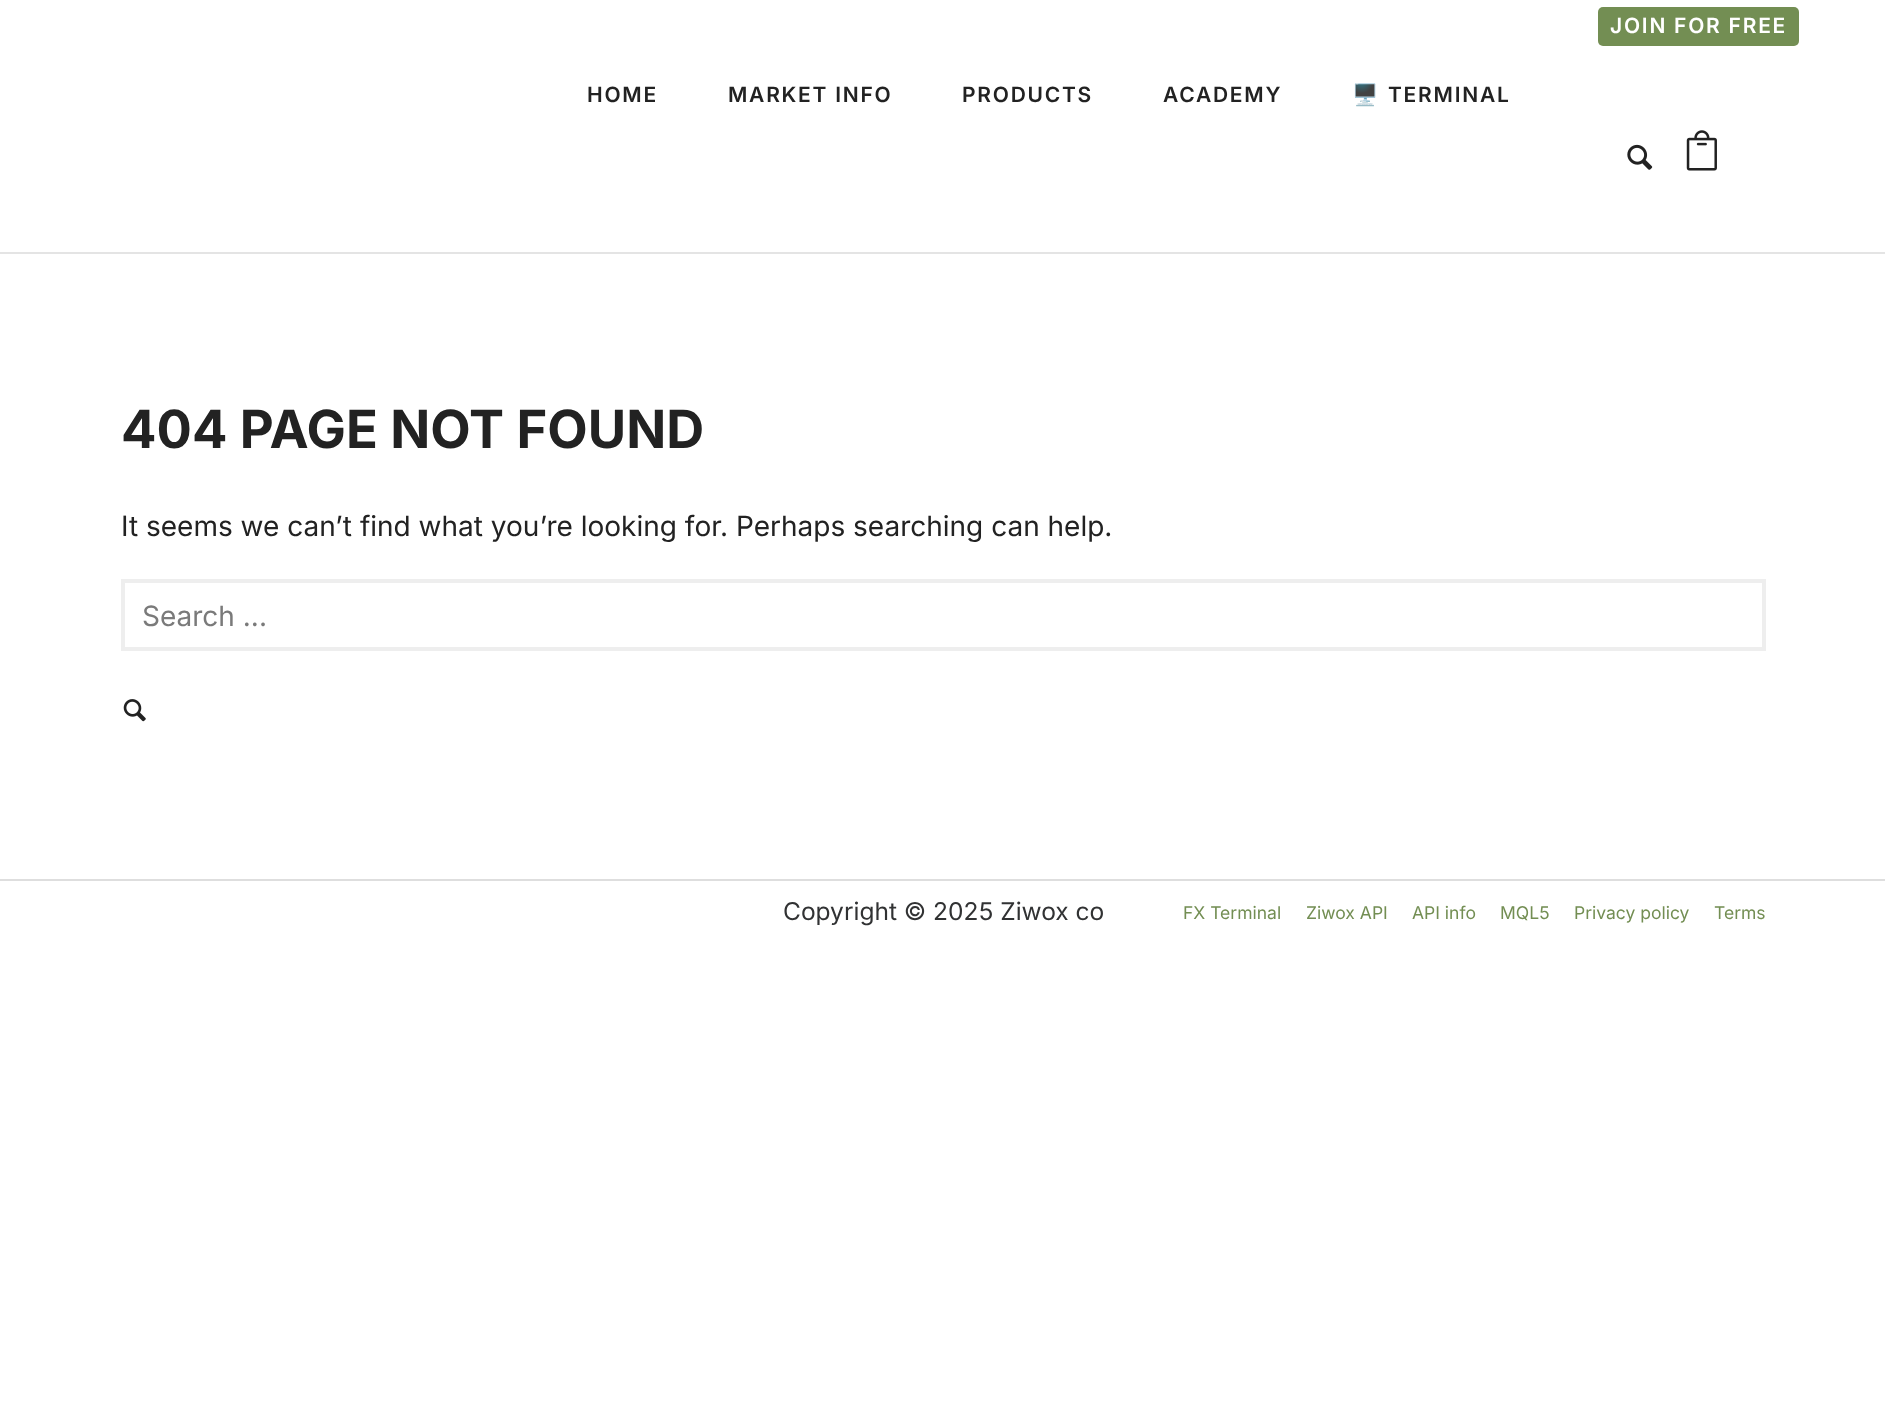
<!DOCTYPE html>
<meta charset="utf-8">
<style>body { margin: 0 } canvas { display: block }</style>
<canvas id="canvas" width="1885" height="1419"></canvas>
<script type="module">
  const canvas = document.getElementById("canvas");
  const g = canvas.getContext("2d");
  g.miterLimit = 4;
  g.fontKerning = "normal";
  function drawText(s, x, y, [font, color]) {
    g.font = font;
    g.fillStyle = color;
    g.fillText(s, x, y);
  }
  function fillBox(x, y, w, h, color) {
    g.fillStyle = color;
    g.fillRect(x, y, w, h);
  }
  function fillRounded(x, y, w, h, r, color) {
    g.fillStyle = color;
    g.beginPath();
    g.roundRect(x, y, w, h, r);
    g.fill();
  }
  async function drawPicture(src, x, y, w, h) {
    const img = new Image();
    img.src = src;
    await img.decode();
    g.drawImage(img, x, y, w, h);
  }

  const s1 = ["600 21px Inter", "#FFFFFF"];
  const s2 = ["600 21px Inter", "#222222"];
  const s3 = ["bold 21px Noto Color Emoji", "#222222"];
  const s4 = ["bold 52.5px Inter", "#222222"];
  const s5 = ["28px Inter", "#222222"];
  const s6 = ["28px Inter", "#7A7A7A"];
  const s7 = ["24.5px Inter", "#313233"];
  const s8 = ["17.5px Inter", "#738E53"];

  fillBox(0, 0, 1885, 1419, "#FFFFFF");
  fillRounded(1598, 7, 201, 39, 5, "#738E53");
  g.letterSpacing = "1.75px";
  drawText("JOIN FOR FREE", 1610, 33, s1);
  await drawPicture("pic1.png", 1627, 144, 26, 26);
  await drawPicture("pic2.png", 1686, 130, 31, 41);
  drawText("HOME", 587, 102, s2);
  drawText("MARKET INFO", 728, 102, s2);
  drawText("PRODUCTS", 962, 102, s2);
  drawText("ACADEMY", 1163, 102, s2);
  drawText("🖥️", 1352, 102, s3);
  drawText("TERMINAL", 1388, 102, s2);
  fillBox(0, 252, 1885, 2, "#E4E4E4");
  g.letterSpacing = "0px";
  drawText("404 PAGE NOT FOUND", 121, 448, s4);
  drawText("It seems we can’t find what you’re looking for. Perhaps searching can help.", 121, 536, s5);
  g.strokeStyle = "#EEEEEE";
  g.lineWidth = 4;
  g.strokeRect(123, 581, 1641, 68);
  drawText("Search ...", 142, 626, s6);
  await drawPicture("pic3.png", 123, 699, 23, 23);
  fillBox(0, 879, 1885, 2, "#DEDEDE");
  drawText("Copyright © 2025 Ziwox co", 783, 920, s7);
  drawText("FX Terminal", 1183, 919, s8);
  drawText("Ziwox API", 1306, 919, s8);
  drawText("API info", 1412, 919, s8);
  drawText("MQL5", 1500, 919, s8);
  drawText("Privacy policy", 1574, 919, s8);
  drawText("Terms", 1714, 919, s8);
</script>
